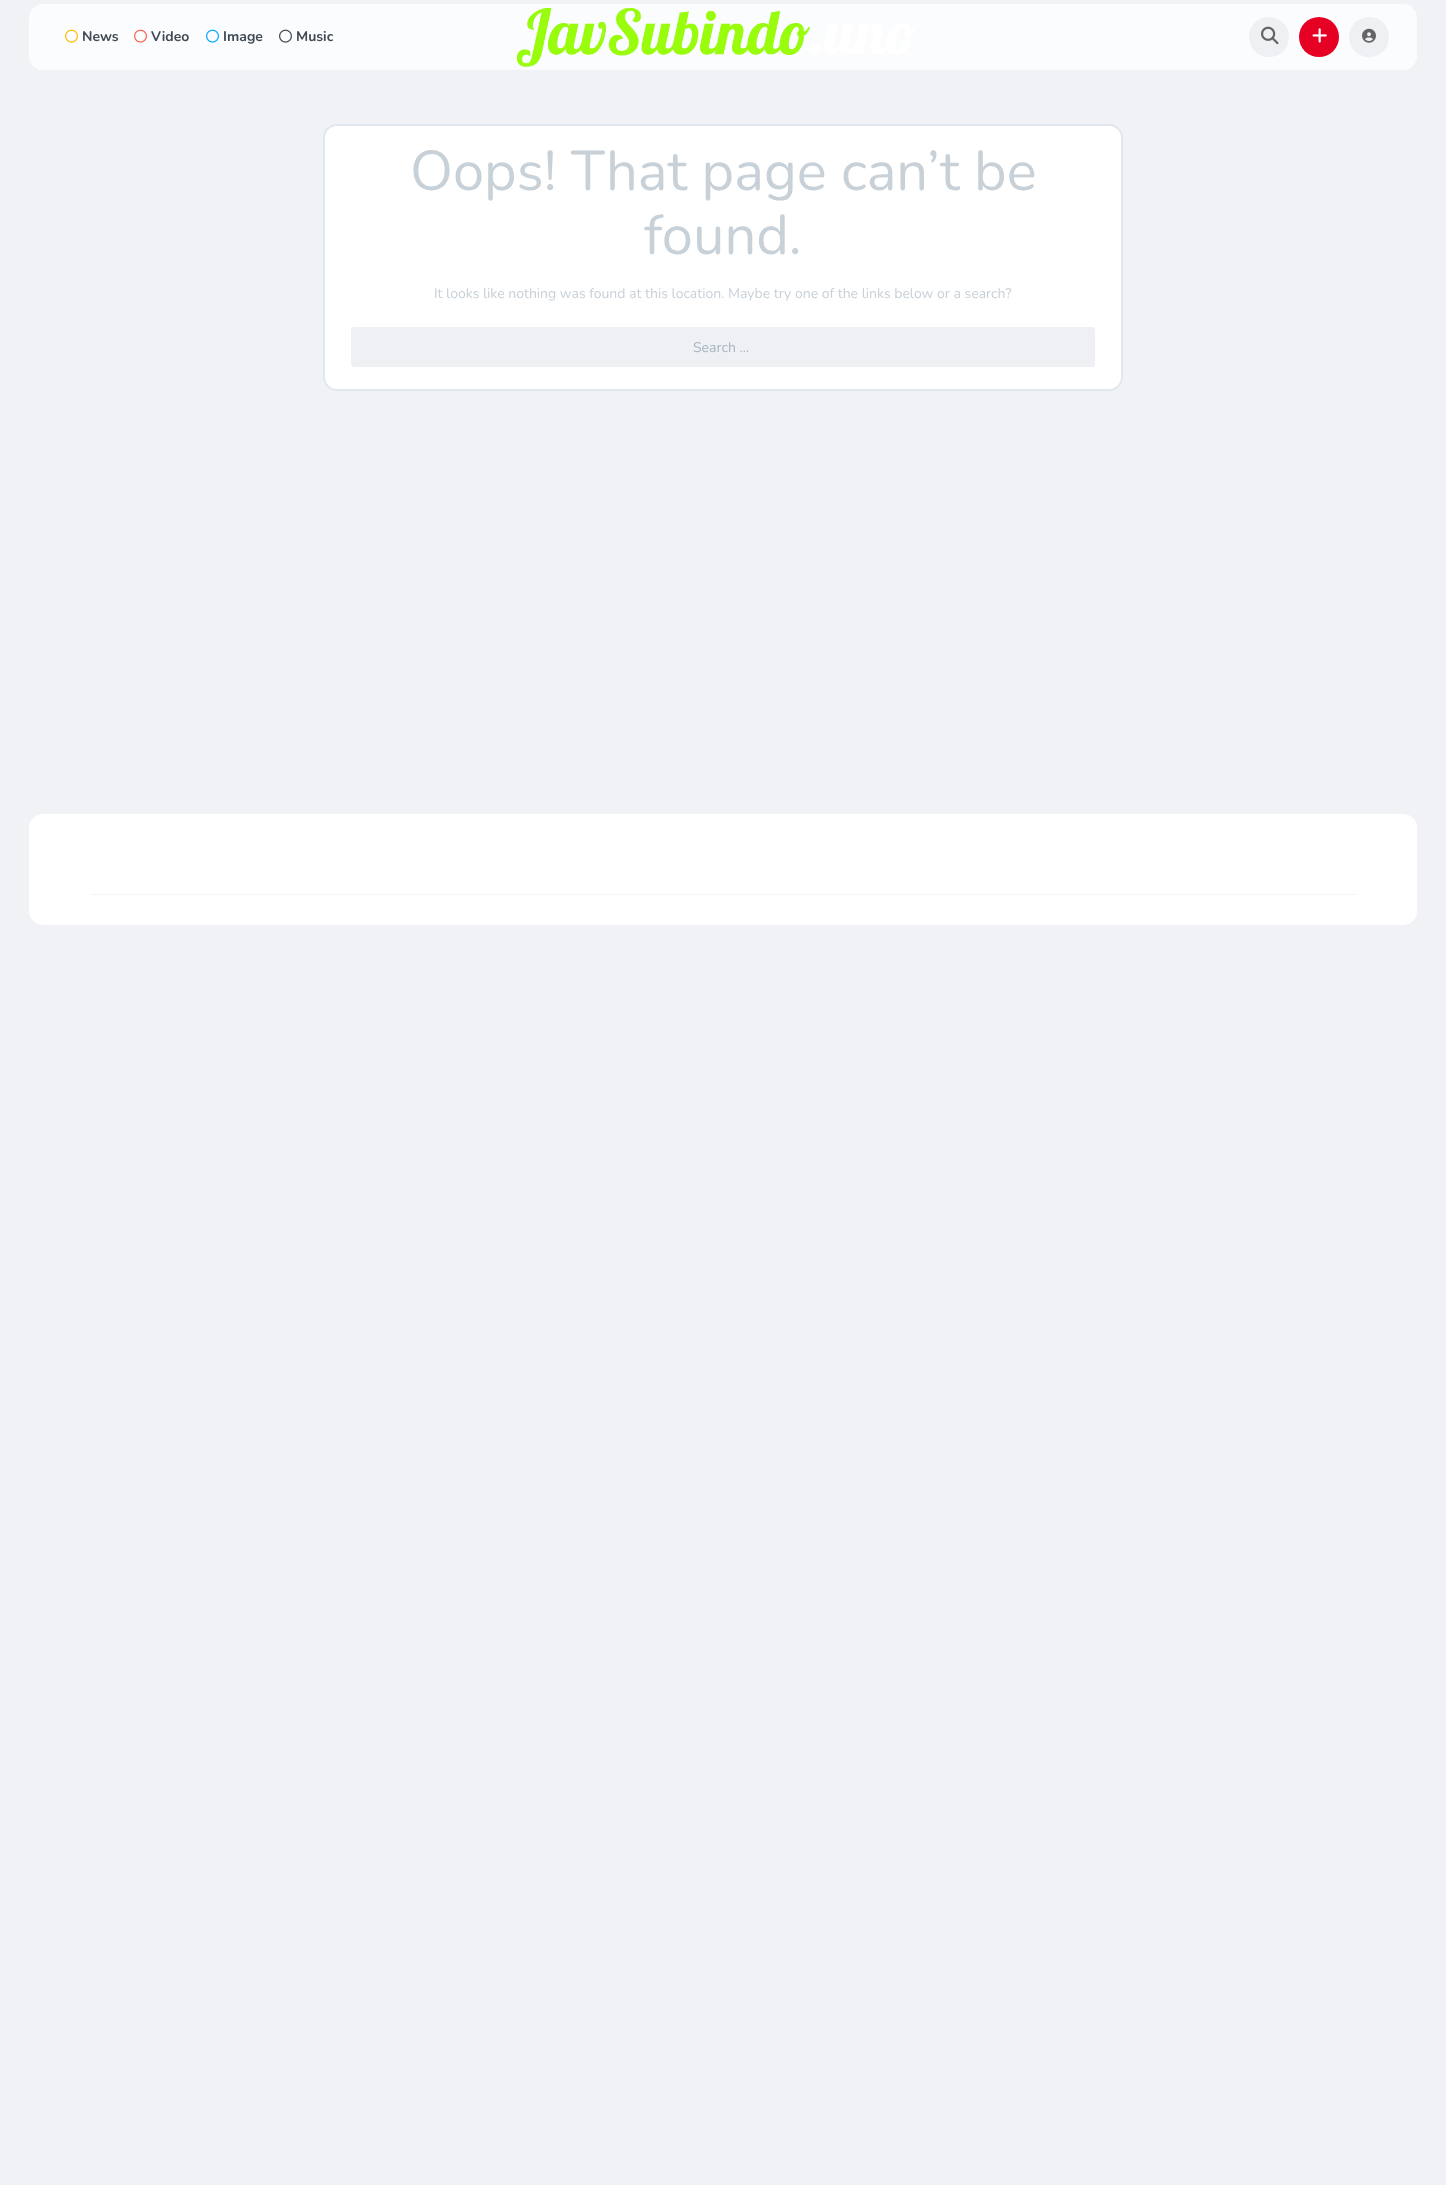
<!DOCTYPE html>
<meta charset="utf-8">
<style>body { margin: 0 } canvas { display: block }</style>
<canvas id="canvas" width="1446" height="2185"></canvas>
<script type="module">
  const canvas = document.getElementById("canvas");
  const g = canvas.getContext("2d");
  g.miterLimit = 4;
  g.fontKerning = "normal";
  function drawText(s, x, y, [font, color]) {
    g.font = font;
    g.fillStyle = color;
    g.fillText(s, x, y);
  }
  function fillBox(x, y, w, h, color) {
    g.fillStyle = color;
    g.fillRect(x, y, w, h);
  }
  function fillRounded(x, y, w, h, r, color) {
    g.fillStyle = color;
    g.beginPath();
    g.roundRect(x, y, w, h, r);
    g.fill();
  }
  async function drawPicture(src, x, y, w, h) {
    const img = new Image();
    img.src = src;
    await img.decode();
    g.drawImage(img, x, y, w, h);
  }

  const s1 = ["bold 14px Nunito", "#404B55"];
  const s2 = ["56px Nunito", "#C8D1D8"];
  const s3 = ["14px Nunito", "#C8D1D8"];
  const s4 = ["14px Nunito", "#A8B6C3"];

  fillBox(0, 0, 1446, 2185, "#F0F2F6");
  fillRounded(29, 4, 1388, 66, 14, "rgba(255, 255, 255, 0.72)");
  await drawPicture("pic1.png", 65, 29, 13, 14);
  drawText("News", 82, 41, s1);
  await drawPicture("pic2.png", 134, 29, 13, 14);
  drawText("Video", 151, 41, s1);
  await drawPicture("pic3.png", 206, 29, 13, 14);
  drawText("Image", 223, 41, s1);
  await drawPicture("pic4.png", 279, 29, 13, 14);
  drawText("Music", 296, 41, s1);
  await drawPicture("pic5.png", 517, 8, 399, 59);
  g.fillStyle = "#EEF0F3";
  g.beginPath();
  g.arc(1269, 37, 20, 0, Math.PI * 2);
  g.fill();
  await drawPicture("pic6.png", 1261, 26, 18, 19);
  g.fillStyle = "#E60023";
  g.beginPath();
  g.arc(1319, 37, 20, 0, Math.PI * 2);
  g.fill();
  await drawPicture("pic7.png", 1312, 28, 15, 15);
  g.fillStyle = "#EEF0F3";
  g.beginPath();
  g.arc(1369, 37, 20, 0, Math.PI * 2);
  g.fill();
  await drawPicture("pic8.png", 1362, 28, 14, 15);
  g.fillStyle = "#FFFFFF";
  g.beginPath();
  g.roundRect(324, 125, 798, 265, 13);
  g.fill();
  g.strokeStyle = "#E1E8ED";
  g.lineWidth = 2;
  g.stroke();
  drawText("Oops! That page can’t be", 410, 190, s2);
  drawText("found.", 644, 254, s2);
  drawText("It looks like nothing was found at this location. Maybe try one of the links below or a search?", 434, 298, s3);
  fillRounded(351, 327, 744, 40, 3, "#EEF0F3");
  drawText("Search …", 693, 352, s4);
  fillRounded(29, 814, 1388, 111, 14, "#FFFFFF");
  fillBox(90, 894, 1266, 1, "#F5F5F5");
</script>
